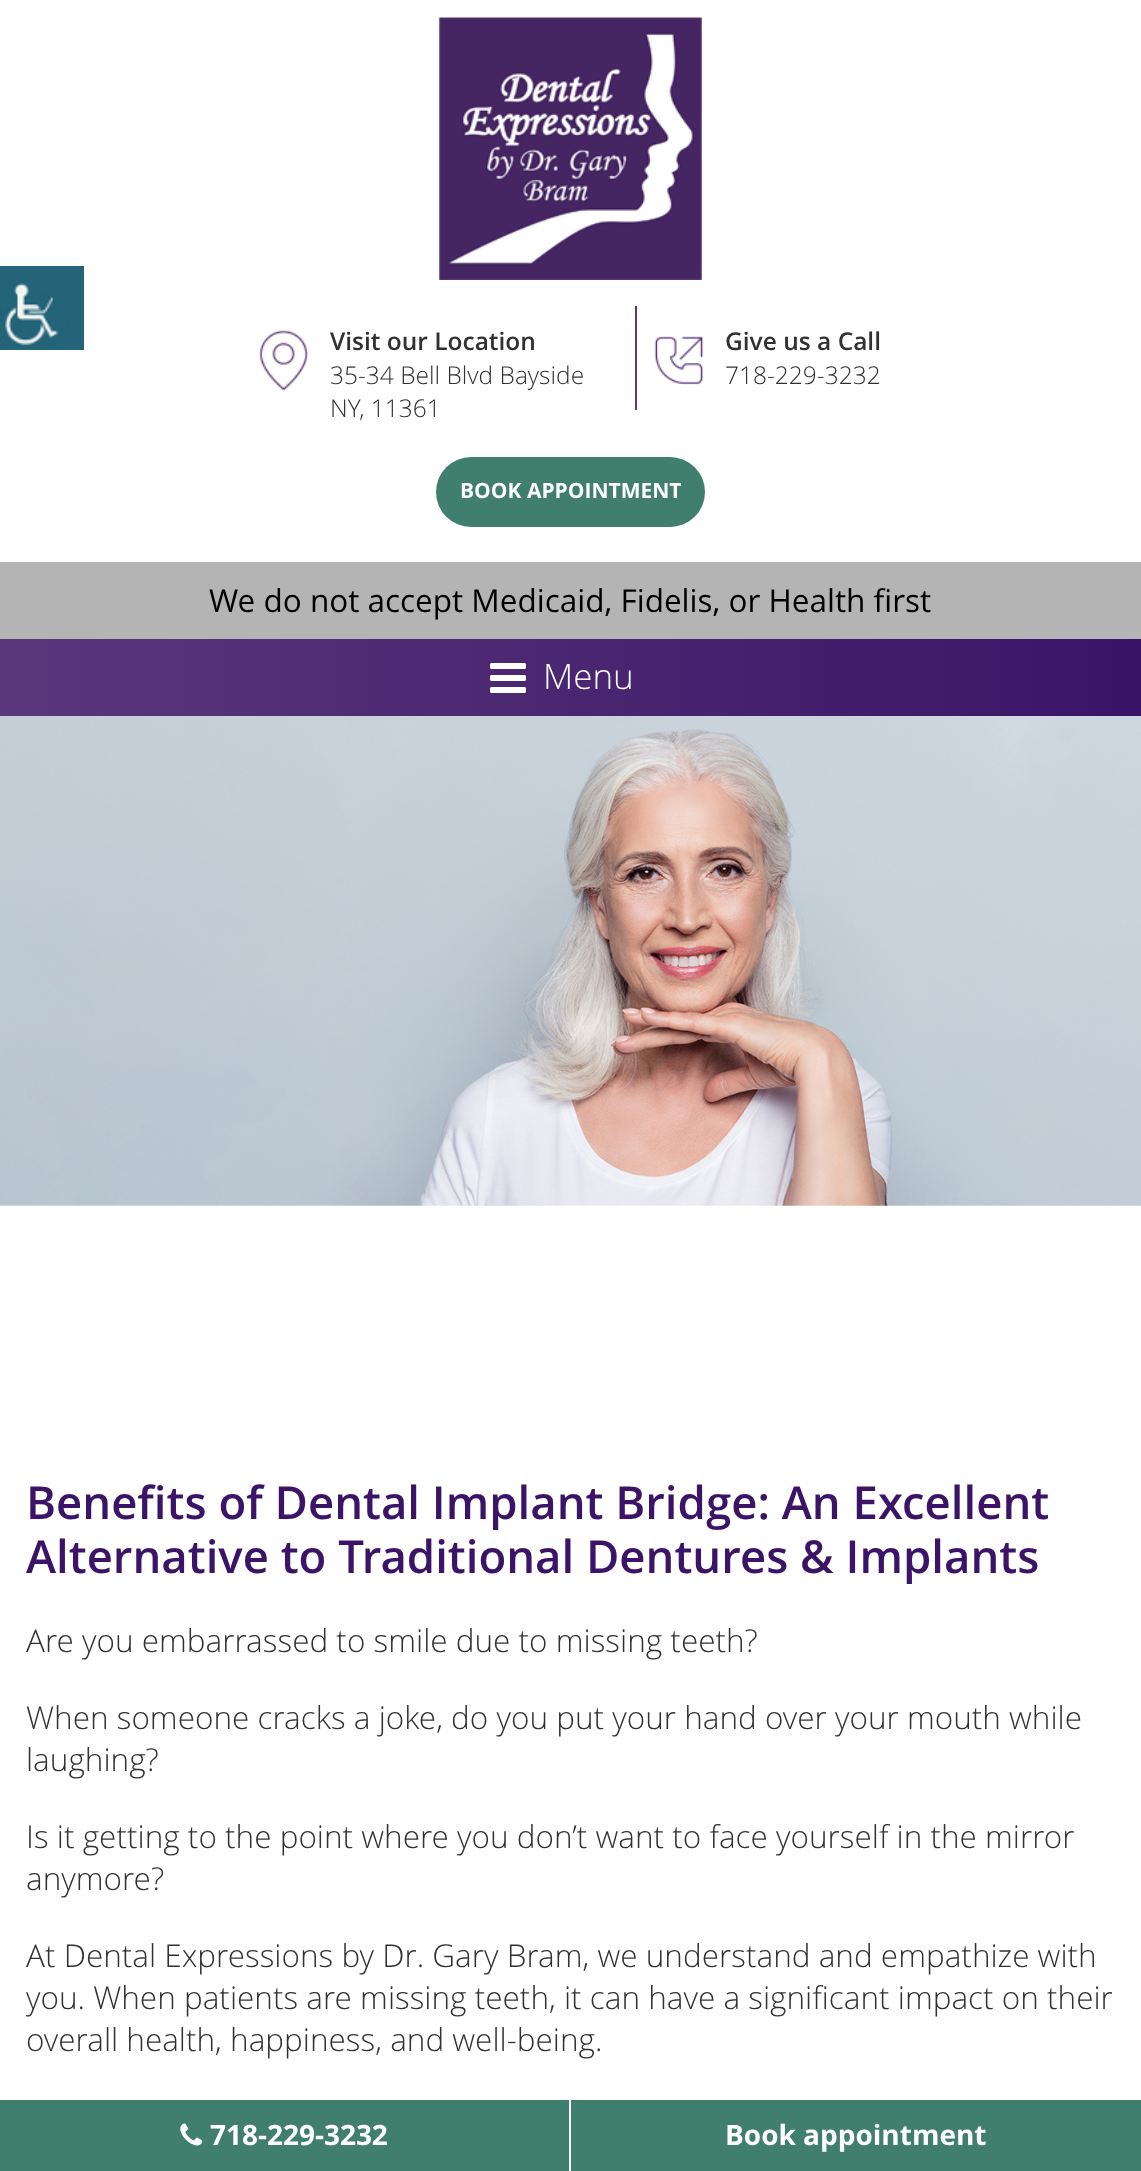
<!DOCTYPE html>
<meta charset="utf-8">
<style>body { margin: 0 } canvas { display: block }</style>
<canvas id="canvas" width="1141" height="2171"></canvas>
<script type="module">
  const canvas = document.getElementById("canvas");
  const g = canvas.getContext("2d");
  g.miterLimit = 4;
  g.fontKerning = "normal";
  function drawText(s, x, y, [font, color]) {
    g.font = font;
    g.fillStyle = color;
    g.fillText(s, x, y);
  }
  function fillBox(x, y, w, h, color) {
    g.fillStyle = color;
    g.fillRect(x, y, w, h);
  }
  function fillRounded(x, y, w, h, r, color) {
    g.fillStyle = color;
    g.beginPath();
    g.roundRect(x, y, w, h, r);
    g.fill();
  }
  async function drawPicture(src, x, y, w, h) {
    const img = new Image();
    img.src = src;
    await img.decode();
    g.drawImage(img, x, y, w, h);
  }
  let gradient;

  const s1 = ["600 24.5px Open Sans", "#313131"];
  const s2 = ["300 24.5px Open Sans", "#313131"];
  const s3 = ["bold 21px Open Sans", "#FFFFFF"];
  const s4 = ["31.5px Open Sans", "#000000"];
  const s5 = ["300 35px Open Sans", "#FFFFFF"];
  const s6 = ["600 45.5px Open Sans", "#3B1468"];
  const s7 = ["300 31.5px Open Sans", "#313131"];
  const s8 = ["bold 28px Open Sans", "#FFFFFF"];

  fillBox(0, 0, 1141, 2171, "#FFFFFF");
  await drawPicture("pic1.png", 0, 266, 84, 84);
  await drawPicture("pic2.png", 439, 17, 263, 263);
  await drawPicture("pic3.png", 259, 330, 49, 61);
  drawText("Visit our Location", 330, 350, s1);
  drawText("35-34 Bell Blvd Bayside", 330, 384, s2);
  drawText("NY, 11361", 330, 417, s2);
  fillBox(635, 306, 2, 104, "#5A377B");
  await drawPicture("pic4.png", 654, 336, 50, 49);
  drawText("Give us a Call", 725, 350, s1);
  drawText("718-229-3232", 725, 384, s2);
  fillRounded(436, 457, 269, 70, 35, "#407E6D");
  drawText("BOOK APPOINTMENT", 460, 498, s3);
  fillBox(0, 562, 1141, 77, "#B4B4B4");
  drawText("We do not accept Medicaid, Fidelis, or Health first", 209, 612, s4);
  gradient = g.createLinearGradient(0, 677, 1141, 677);
  gradient.addColorStop(0, "#5A377B");
  gradient.addColorStop(1, "#3B1468");
  g.fillStyle = gradient;
  g.fillRect(0, 639, 1141, 77);
  await drawPicture("pic5.png", 490, 663, 36, 30);
  drawText("Menu", 543, 689, s5);
  await drawPicture("pic6.png", 0, 716, 1141, 490);
  drawText("Benefits of Dental Implant Bridge: An Excellent", 26, 1519, s6);
  drawText("Alternative to Traditional Dentures & Implants", 26, 1573, s6);
  drawText("Are you embarrassed to smile due to missing teeth?", 26, 1652, s7);
  drawText("When someone cracks a joke, do you put your hand over your mouth while", 26, 1729, s7);
  drawText("laughing?", 26, 1771, s7);
  drawText("Is it getting to the point where you don’t want to face yourself in the mirror", 26, 1848, s7);
  drawText("anymore?", 26, 1890, s7);
  drawText("At Dental Expressions by Dr. Gary Bram, we understand and empathize with", 26, 1967, s7);
  drawText("you. When patients are missing teeth, it can have a significant impact on their", 26, 2009, s7);
  drawText("overall health, happiness, and well-being.", 26, 2051, s7);
  fillBox(0, 2100, 569, 71, "#407E6D");
  await drawPicture("pic7.png", 180, 2123, 23, 23);
  drawText("718-229-3232", 210, 2145, s8);
  fillBox(571, 2100, 570, 71, "#407E6D");
  drawText("Book appointment", 725, 2145, s8);
</script>
